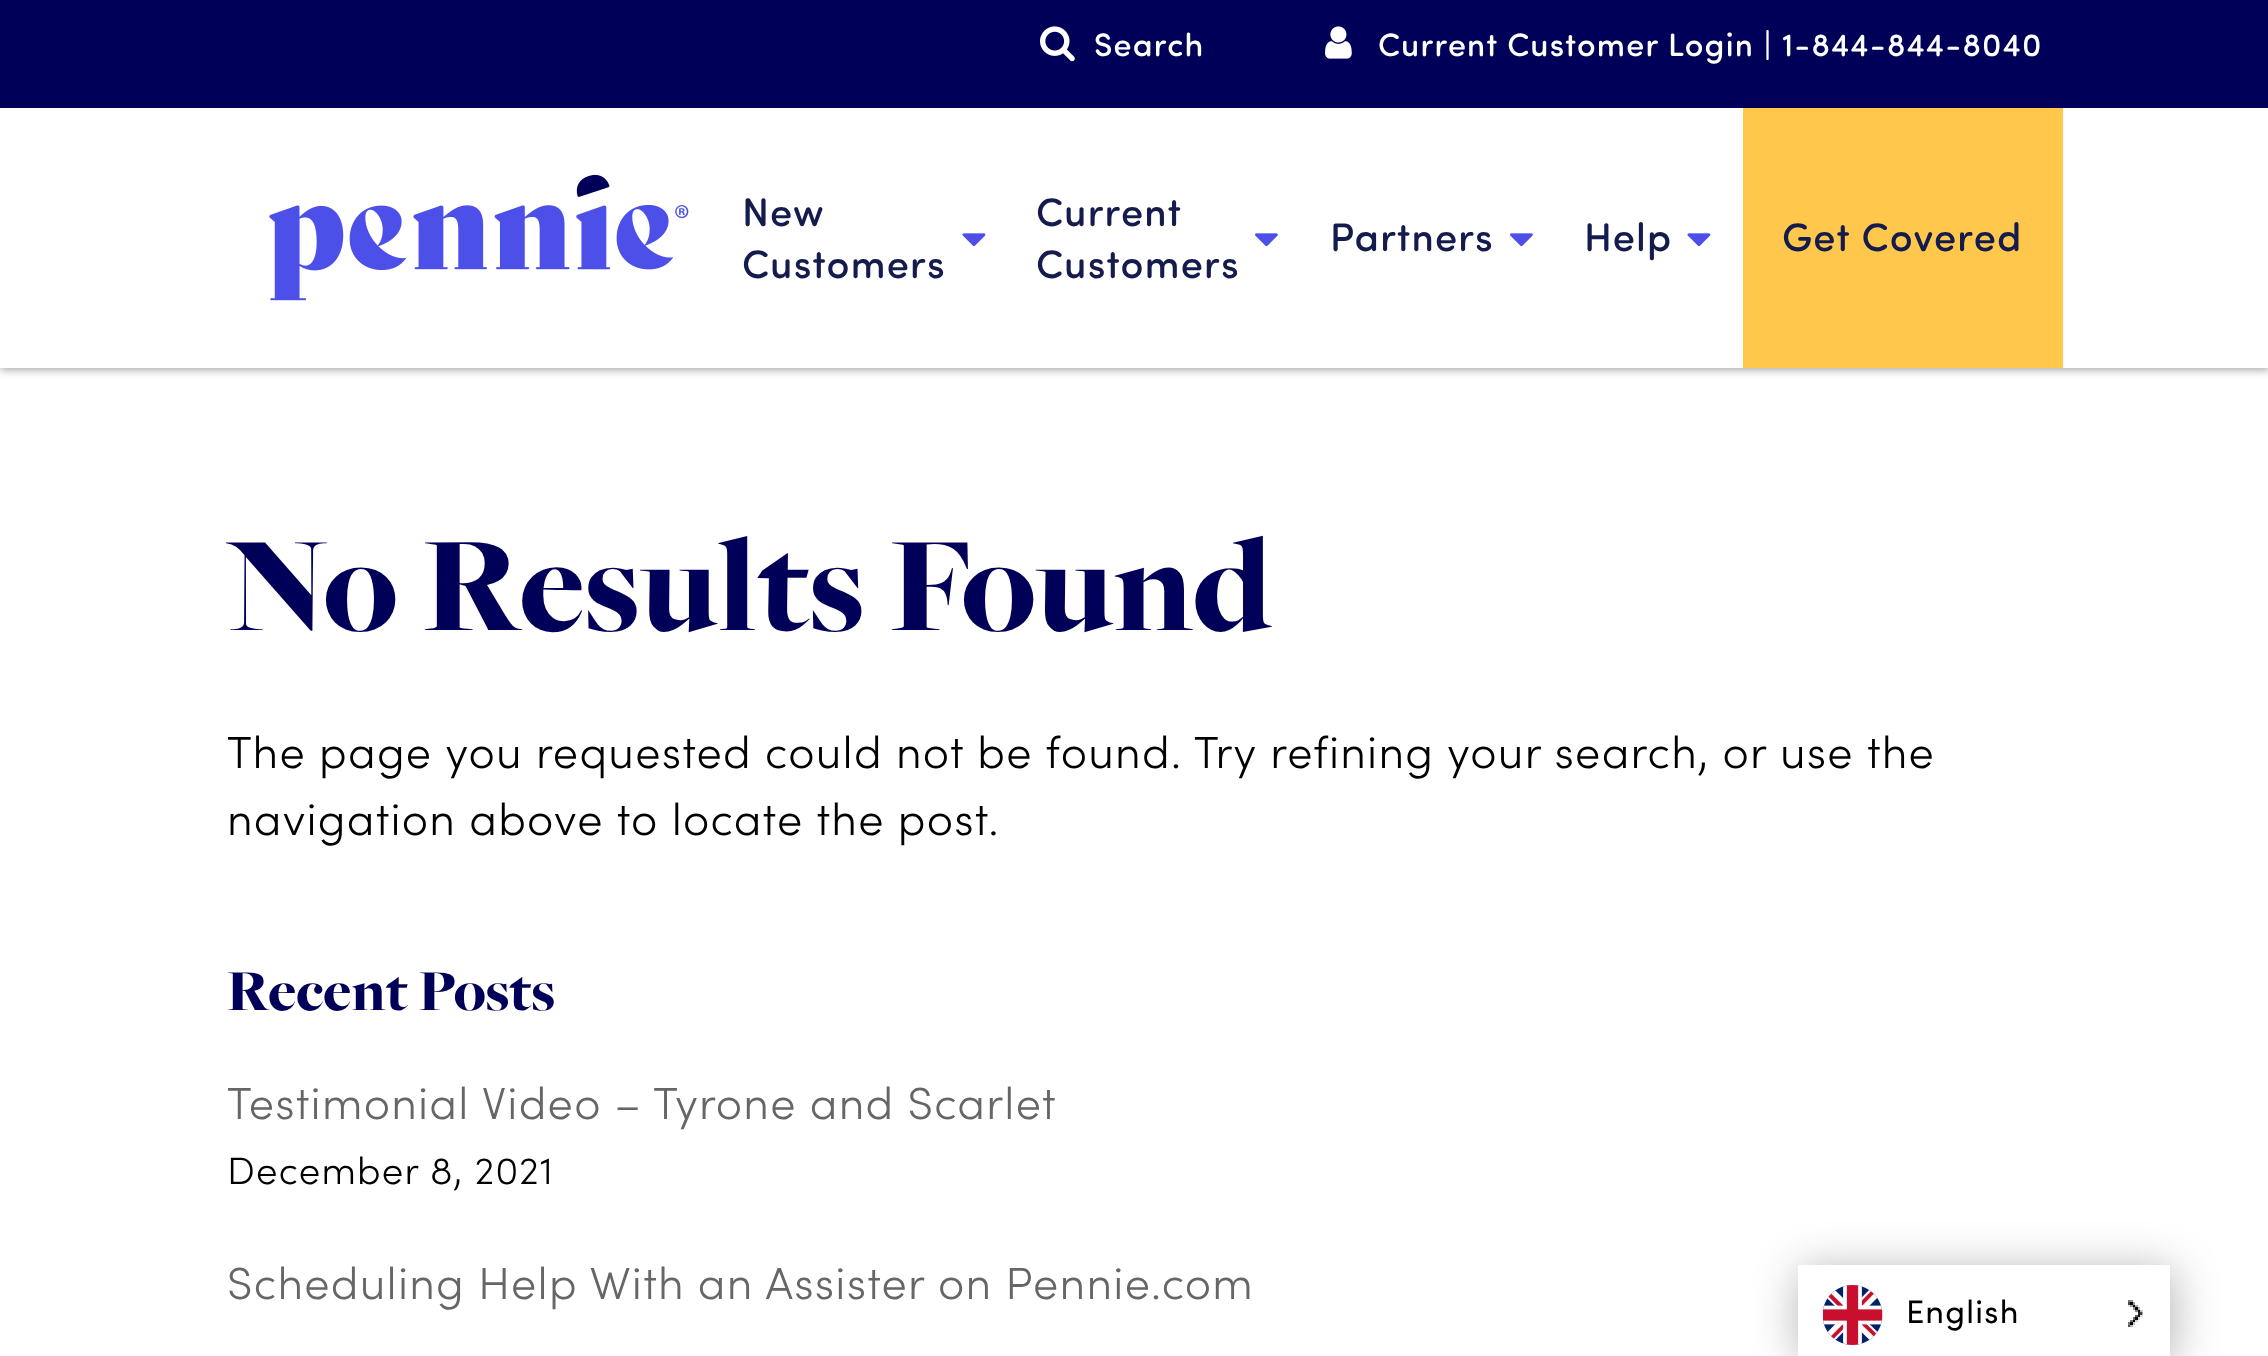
<!DOCTYPE html>
<meta charset="utf-8">
<style>body { margin: 0 } canvas { display: block }</style>
<canvas id="canvas" width="2268" height="1356"></canvas>
<script type="module">
  const canvas = document.getElementById("canvas");
  const g = canvas.getContext("2d");
  g.miterLimit = 4;
  g.fontKerning = "normal";
  function drawText(s, x, y, [font, color]) {
    g.font = font;
    g.fillStyle = color;
    g.fillText(s, x, y);
  }
  function fillBox(x, y, w, h, color) {
    g.fillStyle = color;
    g.fillRect(x, y, w, h);
  }
  async function drawPicture(src, x, y, w, h) {
    const img = new Image();
    img.src = src;
    await img.decode();
    g.drawImage(img, x, y, w, h);
  }

  const s1 = ["500 32.5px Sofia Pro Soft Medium", "#FFFFFF"];
  const s2 = ["500 40px Sofia Pro Soft Medium", "#141B4D"];
  const s3 = ["900 140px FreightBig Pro", "#000058"];
  const s4 = ["300 45px Sofia", "#000000"];
  const s5 = ["900 60px FreightBig Pro", "#000058"];
  const s6 = ["300 45px Sofia", "#666666"];
  const s7 = ["300 38.25px Sofia", "#000000"];
  const s8 = ["32.5px Sofia", "#000000"];

  fillBox(0, 0, 2268, 1356, "#FFFFFF");
  g.fillStyle = "rgba(0, 0, 0, 0.35)";
  g.filter = "blur(4px)";
  g.beginPath();
  g.rect(0, 3, 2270, 367);
  g.fill();
  g.filter = "none";
  fillBox(0, 108, 2268, 260, "#FFFFFF");
  fillBox(0, 0, 2268, 108, "#000058");
  await drawPicture("pic1.png", 1040, 26, 35, 36);
  g.letterSpacing = "1.25px";
  drawText("Search", 1094, 56, s1);
  await drawPicture("pic2.png", 1325, 26, 27, 33);
  drawText("Current Customer Login | 1-844-844-8040", 1378, 56, s1);
  await drawPicture("pic3.png", 269, 174, 420, 127);
  drawText("New", 742, 226, s2);
  await drawPicture("pic4.png", 962, 233, 24, 14);
  drawText("Customers", 742, 278, s2);
  drawText("Current", 1036, 226, s2);
  await drawPicture("pic5.png", 1255, 233, 23, 14);
  drawText("Customers", 1036, 278, s2);
  drawText("Partners", 1330, 251, s2);
  await drawPicture("pic5.png", 1510, 233, 23, 14);
  drawText("Help", 1584, 251, s2);
  await drawPicture("pic4.png", 1687, 233, 24, 14);
  fillBox(1743, 108, 320, 260, "#FFC84D");
  drawText("Get Covered", 1782, 251, s2);
  g.letterSpacing = "0px";
  drawText("No Results Found", 227, 630, s3);
  g.letterSpacing = "1.25px";
  drawText("The page you requested could not be found. Try refining your search, or use the", 227, 768, s4);
  drawText("navigation above to locate the post.", 227, 835, s4);
  g.letterSpacing = "0px";
  drawText("Recent Posts", 227, 1010, s5);
  g.letterSpacing = "1.25px";
  drawText("Testimonial Video – Tyrone and Scarlet", 227, 1119, s6);
  drawText("December 8, 2021", 227, 1184, s7);
  drawText("Scheduling Help With an Assister on Pennie.com", 227, 1299, s6);
  g.save();
  g.beginPath();
  g.moveTo(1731, 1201);
  g.lineTo(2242, 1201);
  g.lineTo(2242, 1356);
  g.lineTo(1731, 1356);
  g.closePath();
  g.moveTo(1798, 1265);
  g.lineTo(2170, 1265);
  g.lineTo(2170, 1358);
  g.lineTo(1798, 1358);
  g.closePath();
  g.clip("evenodd");
  g.fillStyle = "rgba(0, 0, 0, 0.3)";
  g.filter = "blur(22.5px)";
  g.beginPath();
  g.rect(1800, 1270, 373, 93);
  g.fill();
  g.filter = "none";
  g.restore();
  await drawPicture("pic6.png", 1823, 1285, 60, 60);
  drawText("English", 1906, 1323, s8);
  await drawPicture("pic7.png", 2128, 1300, 15, 27);
</script>
